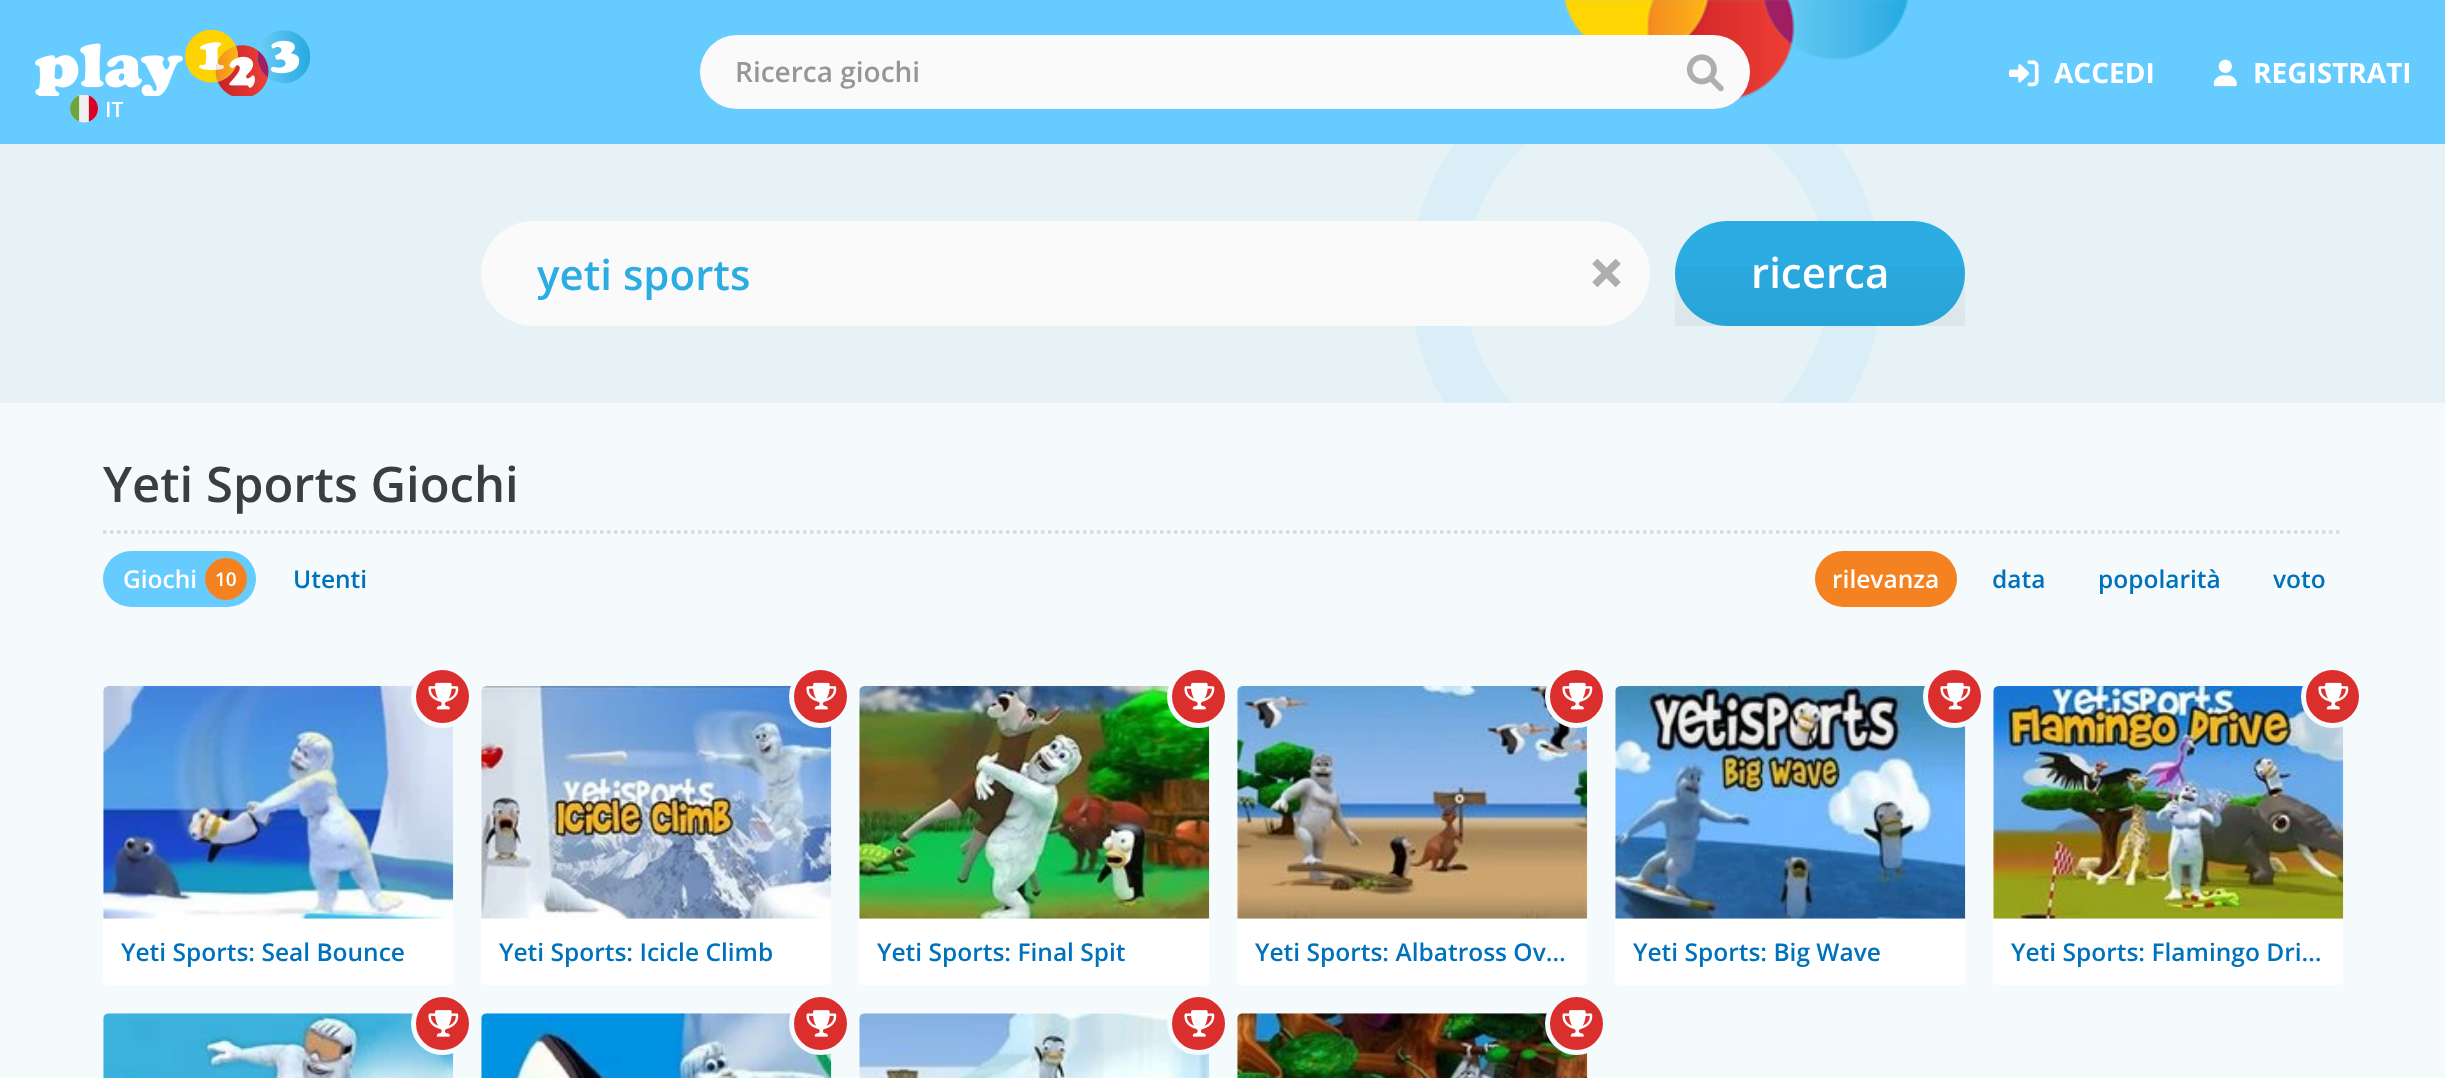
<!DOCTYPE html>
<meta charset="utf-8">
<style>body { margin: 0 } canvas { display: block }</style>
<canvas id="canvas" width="2445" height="1078"></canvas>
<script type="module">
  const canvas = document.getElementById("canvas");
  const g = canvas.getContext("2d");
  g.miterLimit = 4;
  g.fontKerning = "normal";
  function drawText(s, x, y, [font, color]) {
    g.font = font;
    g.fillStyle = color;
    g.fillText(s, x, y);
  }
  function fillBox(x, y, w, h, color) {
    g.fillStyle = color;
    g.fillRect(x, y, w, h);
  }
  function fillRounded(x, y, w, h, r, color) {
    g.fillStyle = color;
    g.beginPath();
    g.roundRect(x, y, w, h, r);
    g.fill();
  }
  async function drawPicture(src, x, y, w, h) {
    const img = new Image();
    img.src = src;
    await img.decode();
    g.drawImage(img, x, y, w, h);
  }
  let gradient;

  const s1 = ["600 28px Open Sans", "#969696"];
  const s2 = ["bold 28px Open Sans", "#FFFFFF"];
  const s3 = ["600 21px Open Sans", "#FFFFFF"];
  const s4 = ["600 42px Open Sans", "#2BACE2"];
  const s5 = ["600 42px Open Sans", "#FFFFFF"];
  const s6 = ["600 49px Open Sans", "#3B3E3E"];
  const s7 = ["600 24.5px Open Sans", "#FFFFFF"];
  const s8 = ["600 19px Open Sans", "#FFFFFF"];
  const s9 = ["600 24.5px Open Sans", "#0072BC"];

  fillBox(0, 0, 2445, 1078, "#F5FAFC");
  fillBox(0, 0, 2445, 144, "#66CCFF");
  await drawPicture("pic1.png", 1564, 0, 344, 100);
  fillRounded(700, 35, 1050, 74, 37, "#FAFAFA");
  drawText("Ricerca giochi", 735, 82, s1);
  await drawPicture("pic2.png", 1686, 54, 38, 38);
  await drawPicture("pic3.png", 2009, 60, 30, 27);
  drawText("ACCEDI", 2054, 83, s2);
  await drawPicture("pic4.png", 2213, 59, 24, 28);
  drawText("REGISTRATI", 2253, 83, s2);
  await drawPicture("pic5.png", 35, 30, 275, 66);
  await drawPicture("pic6.png", 70, 95, 28, 28);
  drawText("IT", 105, 117, s3);
  fillBox(0, 144, 2445, 259, "#E7F2F7");
  await drawPicture("pic7.png", 1415, 144, 462, 259);
  fillRounded(481, 221, 1169, 105, 52.5, "#FAFAFA");
  drawText("yeti sports", 537, 290, s4);
  await drawPicture("pic8.png", 1592, 259, 29, 28);
  fillRounded(1675, 221, 290, 105, 52.5, "#2BACE2");
  gradient = g.createLinearGradient(1820, 220, 1820, 326);
  gradient.addColorStop(0, "rgba(0, 0, 0, 0)");
  gradient.addColorStop(1, "rgba(0, 0, 0, 0.05)");
  g.fillStyle = gradient;
  g.fillRect(1675, 266, 290, 60);
  drawText("ricerca", 1751, 288, s5);
  g.beginPath();
  g.moveTo(103, 532);
  g.lineTo(2343, 532);
  g.strokeStyle = "#D9D9D9";
  g.lineWidth = 3.5;
  g.setLineDash([3.5, 3.5]);
  g.stroke();
  drawText("Yeti Sports Giochi", 103, 502, s6);
  fillRounded(103, 551, 153, 56, 28, "#66CCFF");
  drawText("Giochi", 123, 588, s7);
  g.fillStyle = "#F58220";
  g.beginPath();
  g.arc(226, 579, 21, 0, Math.PI * 2);
  g.fill();
  drawText("10", 215, 586, s8);
  drawText("Utenti", 293, 588, s9);
  fillRounded(1815, 551, 142, 56, 28, "#F58220");
  drawText("rilevanza", 1832, 588, s7);
  drawText("data", 1992, 588, s9);
  drawText("popolarità", 2098, 588, s9);
  drawText("voto", 2273, 588, s9);
  fillRounded(103, 686, 350, 299, 5, "#FFFFFF");
  await drawPicture("pic10.png", 103, 686, 351, 233);
  g.fillStyle = "#DB2F2D";
  g.beginPath();
  g.arc(442.5, 696.5, 29, 0, Math.PI * 2);
  g.fill();
  g.strokeStyle = "#F5FAFC";
  g.lineWidth = 5;
  g.setLineDash([]);
  g.stroke();
  await drawPicture("pic9.png", 428, 682, 31, 28);
  drawText("Yeti Sports: Seal Bounce", 121, 961, s9);
  fillRounded(481, 686, 350, 299, 5, "#FFFFFF");
  await drawPicture("pic11.png", 481, 686, 351, 233);
  g.fillStyle = "#DB2F2D";
  g.beginPath();
  g.arc(820.5, 696.5, 29, 0, Math.PI * 2);
  g.fill();
  g.stroke();
  await drawPicture("pic9.png", 806, 682, 31, 28);
  drawText("Yeti Sports: Icicle Climb", 499, 961, s9);
  fillRounded(859, 686, 350, 299, 5, "#FFFFFF");
  await drawPicture("pic12.png", 859, 686, 351, 233);
  g.fillStyle = "#DB2F2D";
  g.beginPath();
  g.arc(1198.5, 696.5, 29, 0, Math.PI * 2);
  g.fill();
  g.stroke();
  await drawPicture("pic9.png", 1184, 682, 31, 28);
  drawText("Yeti Sports: Final Spit", 877, 961, s9);
  fillRounded(1237, 686, 350, 299, 5, "#FFFFFF");
  await drawPicture("pic13.png", 1237, 686, 351, 233);
  g.fillStyle = "#DB2F2D";
  g.beginPath();
  g.arc(1576.5, 696.5, 29, 0, Math.PI * 2);
  g.fill();
  g.stroke();
  await drawPicture("pic9.png", 1562, 682, 31, 28);
  drawText("Yeti Sports: Albatross Ov…", 1255, 961, s9);
  fillRounded(1615, 686, 350, 299, 5, "#FFFFFF");
  await drawPicture("pic14.png", 1615, 686, 351, 233);
  g.fillStyle = "#DB2F2D";
  g.beginPath();
  g.arc(1954.5, 696.5, 29, 0, Math.PI * 2);
  g.fill();
  g.stroke();
  await drawPicture("pic9.png", 1940, 682, 31, 28);
  drawText("Yeti Sports: Big Wave", 1633, 961, s9);
  fillRounded(1993, 686, 350, 299, 5, "#FFFFFF");
  await drawPicture("pic15.png", 1993, 686, 351, 233);
  g.fillStyle = "#DB2F2D";
  g.beginPath();
  g.arc(2332.5, 696.5, 29, 0, Math.PI * 2);
  g.fill();
  g.stroke();
  await drawPicture("pic9.png", 2318, 682, 31, 28);
  drawText("Yeti Sports: Flamingo Dri…", 2011, 961, s9);
  fillRounded(103, 1013, 350, 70, 5, "#FFFFFF");
  await drawPicture("pic17.png", 103, 1013, 351, 65);
  g.fillStyle = "#DB2F2D";
  g.beginPath();
  g.arc(442.5, 1023.5, 29, 0, Math.PI * 2);
  g.fill();
  g.stroke();
  await drawPicture("pic16.png", 428, 1010, 31, 27);
  fillRounded(481, 1013, 350, 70, 5, "#FFFFFF");
  await drawPicture("pic18.png", 481, 1013, 351, 65);
  g.fillStyle = "#DB2F2D";
  g.beginPath();
  g.arc(820.5, 1023.5, 29, 0, Math.PI * 2);
  g.fill();
  g.stroke();
  await drawPicture("pic16.png", 806, 1010, 31, 27);
  fillRounded(859, 1013, 350, 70, 5, "#FFFFFF");
  await drawPicture("pic19.png", 859, 1013, 351, 65);
  g.fillStyle = "#DB2F2D";
  g.beginPath();
  g.arc(1198.5, 1023.5, 29, 0, Math.PI * 2);
  g.fill();
  g.stroke();
  await drawPicture("pic16.png", 1184, 1010, 31, 27);
  fillRounded(1237, 1013, 350, 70, 5, "#FFFFFF");
  await drawPicture("pic20.png", 1237, 1013, 351, 65);
  g.fillStyle = "#DB2F2D";
  g.beginPath();
  g.arc(1576.5, 1023.5, 29, 0, Math.PI * 2);
  g.fill();
  g.stroke();
  await drawPicture("pic16.png", 1562, 1010, 31, 27);
</script>
